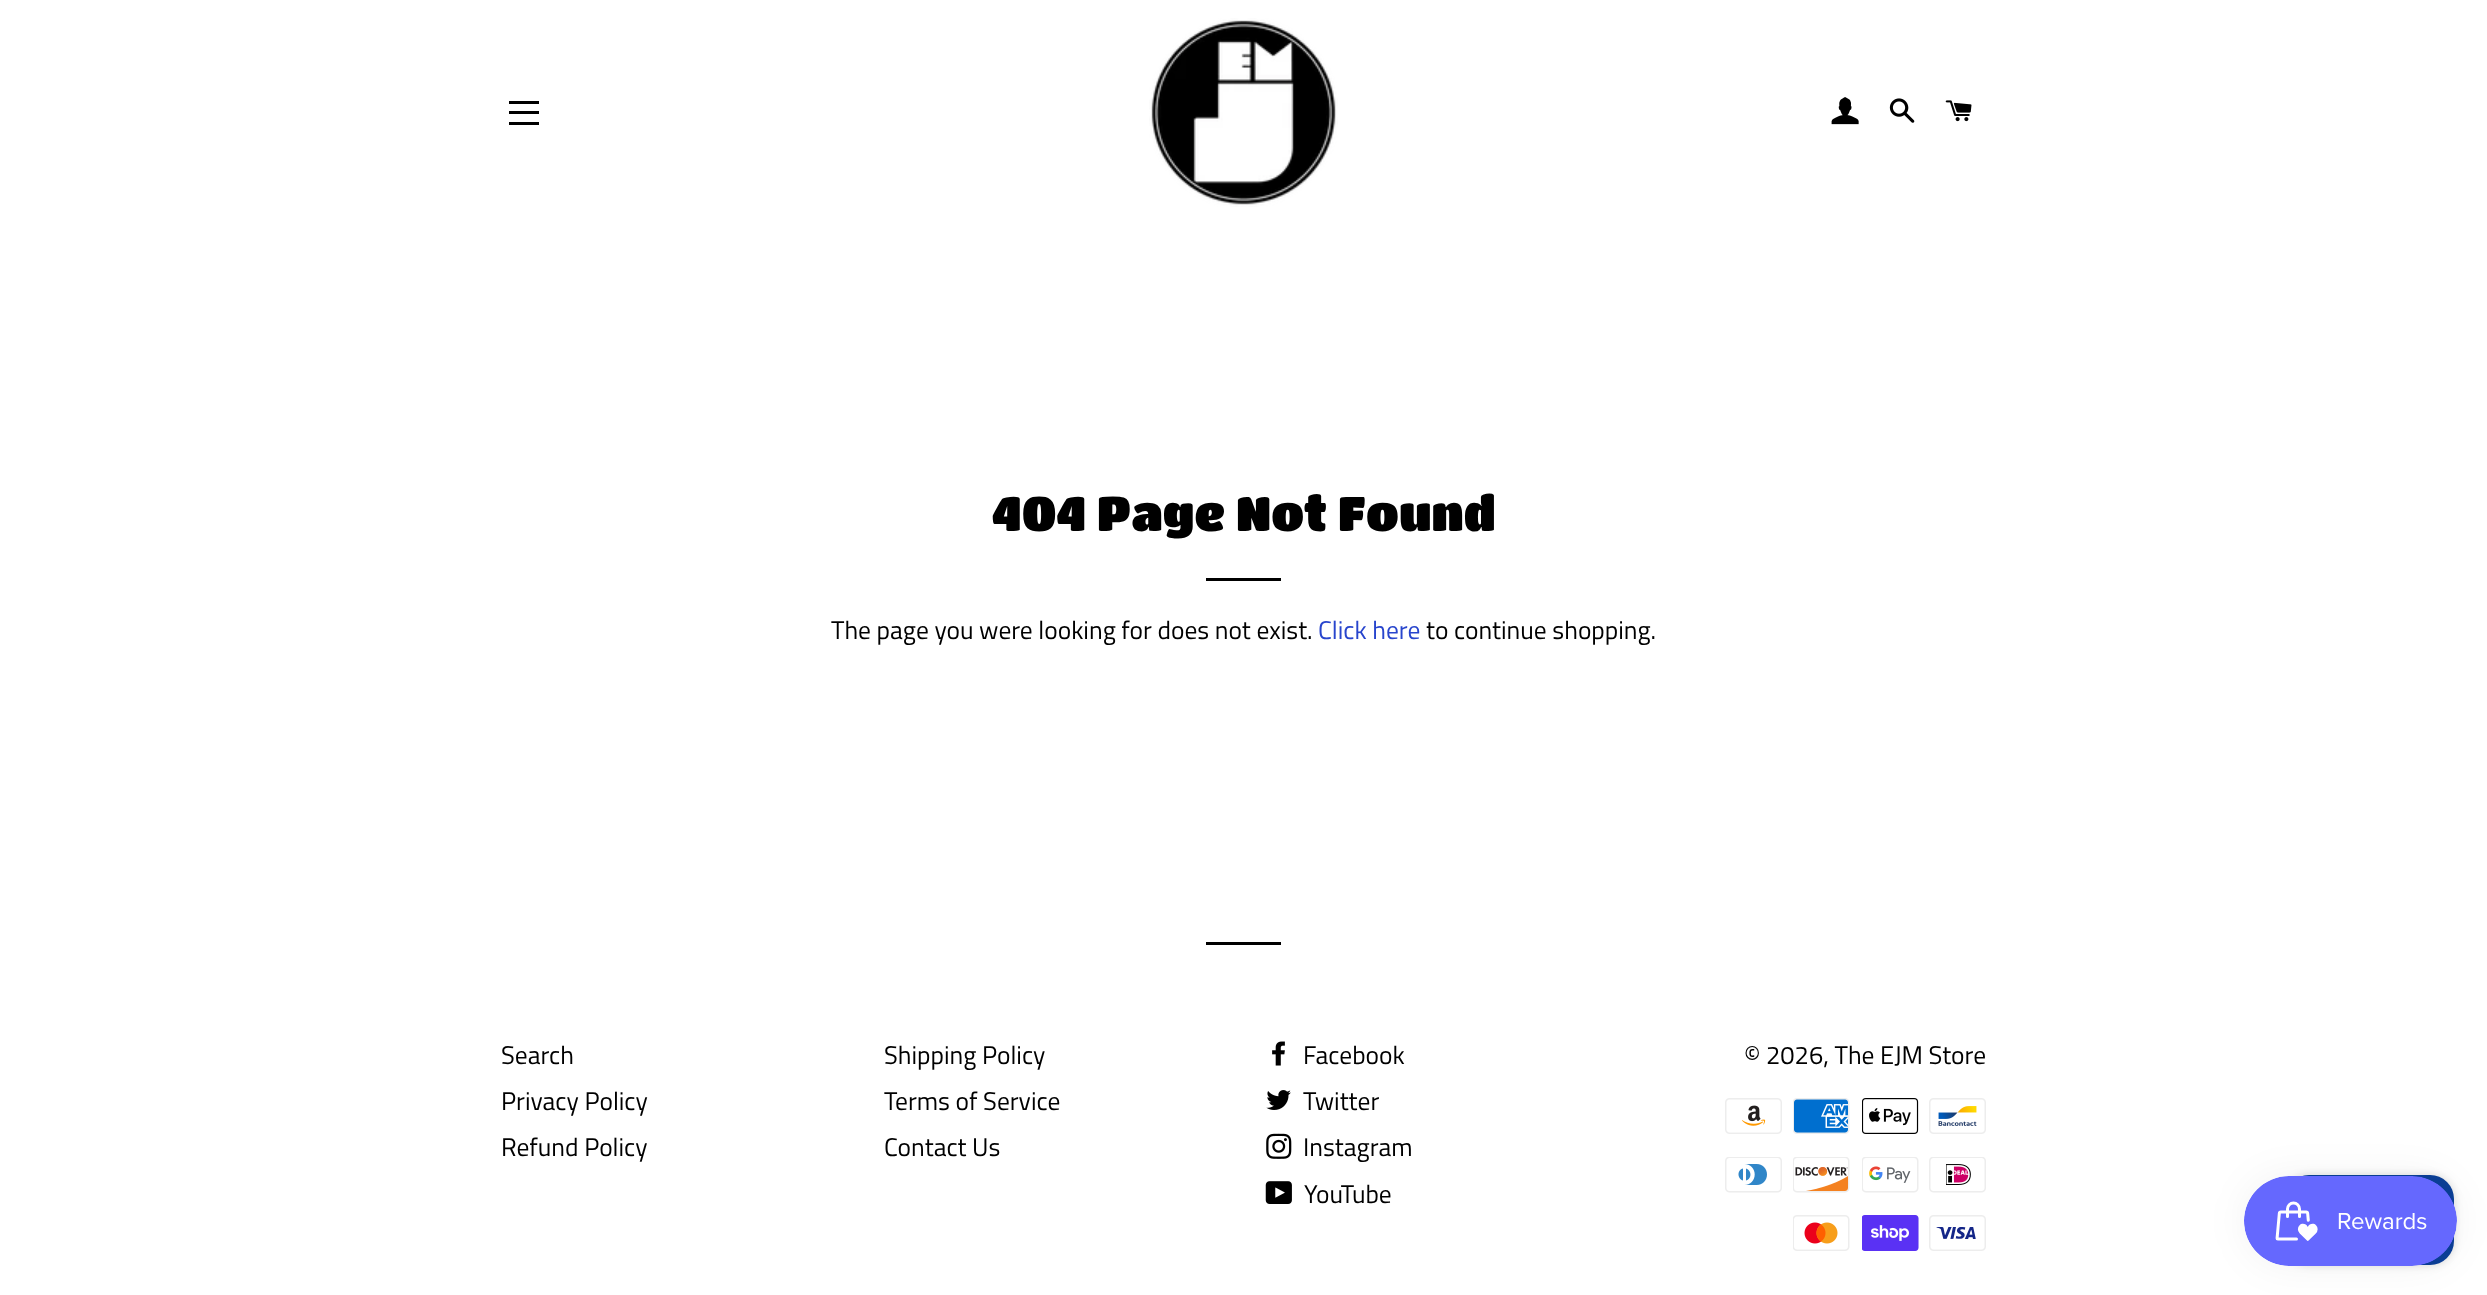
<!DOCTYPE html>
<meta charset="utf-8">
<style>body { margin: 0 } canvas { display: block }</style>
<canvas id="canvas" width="2487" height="1295"></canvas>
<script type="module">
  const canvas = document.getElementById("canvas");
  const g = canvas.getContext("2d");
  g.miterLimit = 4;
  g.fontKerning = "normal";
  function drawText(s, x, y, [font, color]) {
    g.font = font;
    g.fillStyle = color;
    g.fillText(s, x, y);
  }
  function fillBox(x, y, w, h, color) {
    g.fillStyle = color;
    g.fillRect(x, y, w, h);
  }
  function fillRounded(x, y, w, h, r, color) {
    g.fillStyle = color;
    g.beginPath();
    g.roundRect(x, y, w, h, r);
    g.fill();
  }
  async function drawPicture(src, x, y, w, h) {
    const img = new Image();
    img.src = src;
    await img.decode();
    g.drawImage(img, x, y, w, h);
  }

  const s1 = ["48px Titan One", "#000000"];
  const s2 = ["25.5px Titillium Web", "#000000"];
  const s3 = ["25.5px Titillium Web", "#2845CD"];

  fillBox(0, 0, 2487, 1295, "#FFFFFF");
  fillBox(509, 101, 30, 3, "#000000");
  fillBox(509, 111, 30, 3, "#000000");
  fillBox(509, 122, 30, 3, "#000000");
  await drawPicture("pic1.png", 1149, 18, 189, 189);
  await drawPicture("pic2.png", 1831, 97, 28, 28);
  await drawPicture("pic3.png", 1889, 98, 26, 25);
  await drawPicture("pic4.png", 1945, 100, 27, 22);
  drawText("404 Page Not Found", 992, 531, s1);
  fillBox(1206, 578, 75, 3, "#000000");
  drawText("The page you were looking for does not exist.", 831, 639, s2);
  drawText("Click here", 1318, 639, s3);
  drawText("to continue shopping.", 1426, 639, s2);
  fillBox(1206, 942, 75, 3, "#000000");
  drawText("Search", 501, 1064, s2);
  drawText("Privacy Policy", 501, 1110, s2);
  drawText("Refund Policy", 501, 1156, s2);
  drawText("Shipping Policy", 884, 1064, s2);
  drawText("Terms of Service", 884, 1110, s2);
  drawText("Contact Us", 884, 1156, s2);
  await drawPicture("pic5.png", 1272, 1041, 13, 25);
  drawText("Facebook", 1303, 1064, s2);
  await drawPicture("pic6.png", 1266, 1090, 25, 20);
  drawText("Twitter", 1303, 1110, s2);
  await drawPicture("pic7.png", 1266, 1133, 26, 26);
  drawText("Instagram", 1303, 1156, s2);
  await drawPicture("pic8.png", 1265, 1181, 27, 23);
  drawText("YouTube", 1304, 1203, s2);
  drawText("© 2026, The EJM Store", 1744, 1064, s2);
  await drawPicture("pic9.png", 1725, 1098, 57, 36);
  await drawPicture("pic10.png", 1793, 1098, 57, 36);
  await drawPicture("pic11.png", 1862, 1098, 57, 36);
  await drawPicture("pic12.png", 1929, 1098, 57, 36);
  await drawPicture("pic13.png", 1725, 1157, 57, 36);
  await drawPicture("pic14.png", 1793, 1157, 57, 36);
  await drawPicture("pic15.png", 1862, 1157, 57, 36);
  await drawPicture("pic16.png", 1929, 1157, 57, 36);
  await drawPicture("pic17.png", 1793, 1215, 57, 36);
  await drawPicture("pic18.png", 1862, 1215, 57, 36);
  await drawPicture("pic19.png", 1929, 1215, 57, 36);
  g.fillStyle = "rgba(0, 0, 0, 0.15)";
  g.filter = "blur(4px)";
  g.beginPath();
  g.roundRect(2285, 1175, 169, 90, 24);
  g.fill();
  g.filter = "none";
  fillRounded(2285, 1175, 169, 90, 24, "#0B3F97");
  g.fillStyle = "rgba(0, 0, 0, 0.05)";
  g.filter = "blur(19px)";
  g.beginPath();
  g.roundRect(2244, 1176, 213, 90, 45);
  g.fill();
  g.filter = "none";
  await drawPicture("pic20.png", 2244, 1176, 213, 90);
</script>
